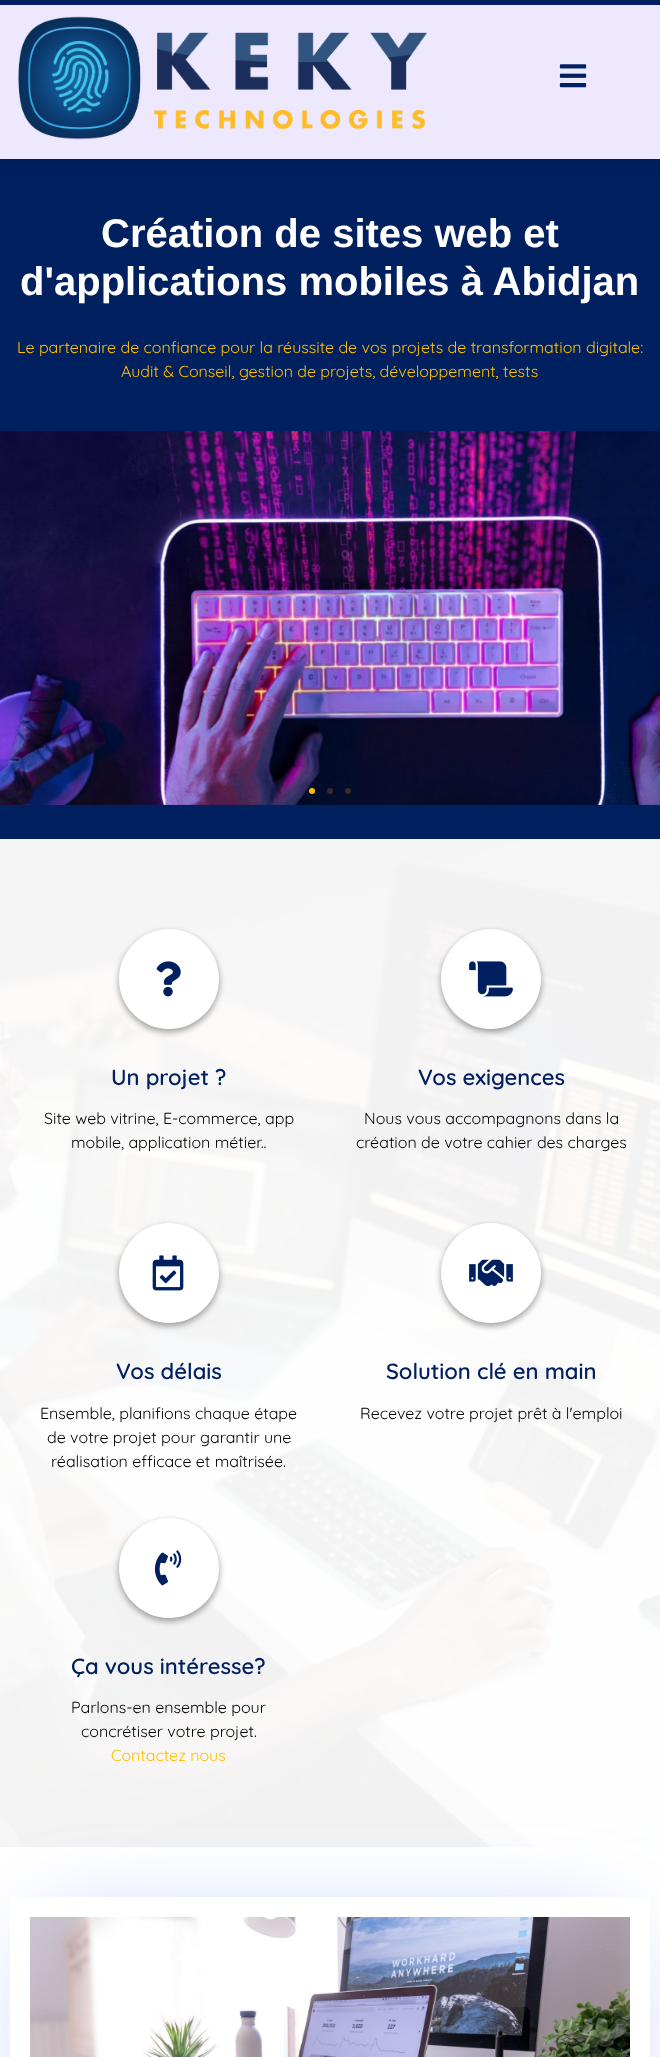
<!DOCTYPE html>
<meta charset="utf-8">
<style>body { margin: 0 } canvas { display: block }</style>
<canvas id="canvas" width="660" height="2057"></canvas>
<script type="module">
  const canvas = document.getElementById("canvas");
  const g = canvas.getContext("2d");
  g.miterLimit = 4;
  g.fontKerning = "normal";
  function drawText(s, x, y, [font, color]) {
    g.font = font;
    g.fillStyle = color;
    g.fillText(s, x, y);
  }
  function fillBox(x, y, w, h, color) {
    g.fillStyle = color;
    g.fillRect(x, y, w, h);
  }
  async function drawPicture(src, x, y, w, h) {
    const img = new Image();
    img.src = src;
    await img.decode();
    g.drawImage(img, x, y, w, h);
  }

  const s1 = ["bold 40px Liberation Sans", "#FFFFFF"];
  const s2 = ["16px Quicksand", "#FFC000"];
  const s3 = ["600 22px Quicksand", "#002060"];
  const s4 = ["16px Quicksand", "#000000"];

  fillBox(0, 0, 660, 2057, "#FFFFFF");
  fillBox(0, 159, 660, 680, "#002060");
  g.fillStyle = "rgba(0, 0, 0, 0.05)";
  g.filter = "blur(7.5px)";
  g.beginPath();
  g.rect(0, 5, 660, 159);
  g.fill();
  g.filter = "none";
  fillBox(0, 5, 660, 154, "#EEE8FF");
  await drawPicture("pic1.png", 18, 16, 409, 124);
  await drawPicture("pic2.png", 559, 64, 28, 24);
  fillBox(0, 0, 660, 5, "#002060");
  drawText("Création de sites web et", 101, 247, s1);
  drawText("d'applications mobiles à Abidjan", 20, 295, s1);
  drawText("Le partenaire de confiance pour la réussite de vos projets de transformation digitale:", 17, 353, s2);
  drawText("Audit & Conseil, gestion de projets, développement, tests", 121, 377, s2);
  await drawPicture("pic3.png", 0, 431, 660, 374);
  g.beginPath();
  g.arc(312, 791, 3, 0, Math.PI * 2);
  g.fill();
  g.fillStyle = "rgba(255, 192, 0, 0.2)";
  g.beginPath();
  g.arc(330, 791, 3, 0, Math.PI * 2);
  g.fill();
  g.beginPath();
  g.arc(348, 791, 3, 0, Math.PI * 2);
  g.fill();
  await drawPicture("pic4.png", 0, 839, 660, 1008);
  g.fillStyle = "rgba(0, 0, 0, 0.23)";
  g.filter = "blur(3px)";
  g.beginPath();
  g.roundRect(119, 932, 100, 100, 50);
  g.fill();
  g.filter = "none";
  g.fillStyle = "rgba(0, 0, 0, 0.16)";
  g.filter = "blur(3px)";
  g.beginPath();
  g.roundRect(119, 932, 100, 100, 50);
  g.fill();
  g.filter = "none";
  g.fillStyle = "#FFFFFF";
  g.beginPath();
  g.arc(169, 979, 50, 0, Math.PI * 2);
  g.fill();
  await drawPicture("pic5.png", 156, 961, 25, 36);
  drawText("Un projet ?", 111, 1085, s3);
  drawText("Site web vitrine, E-commerce, app", 44, 1124, s4);
  drawText("mobile, application métier..", 71, 1148, s4);
  g.fillStyle = "rgba(0, 0, 0, 0.23)";
  g.filter = "blur(3px)";
  g.beginPath();
  g.roundRect(441, 932, 100, 100, 50);
  g.fill();
  g.filter = "none";
  g.fillStyle = "rgba(0, 0, 0, 0.16)";
  g.filter = "blur(3px)";
  g.beginPath();
  g.roundRect(441, 932, 100, 100, 50);
  g.fill();
  g.filter = "none";
  g.fillStyle = "#FFFFFF";
  g.beginPath();
  g.arc(491, 979, 50, 0, Math.PI * 2);
  g.fill();
  await drawPicture("pic6.png", 469, 961, 44, 36);
  drawText("Vos exigences", 418, 1085, s3);
  drawText("Nous vous accompagnons dans la", 364, 1124, s4);
  drawText("création de votre cahier des charges", 356, 1148, s4);
  g.fillStyle = "rgba(0, 0, 0, 0.23)";
  g.filter = "blur(3px)";
  g.beginPath();
  g.roundRect(119, 1226, 100, 100, 50);
  g.fill();
  g.filter = "none";
  g.fillStyle = "rgba(0, 0, 0, 0.16)";
  g.filter = "blur(3px)";
  g.beginPath();
  g.roundRect(119, 1226, 100, 100, 50);
  g.fill();
  g.filter = "none";
  g.fillStyle = "#FFFFFF";
  g.beginPath();
  g.arc(169, 1273, 50, 0, Math.PI * 2);
  g.fill();
  await drawPicture("pic7.png", 152, 1255, 32, 36);
  drawText("Vos délais", 116, 1379, s3);
  drawText("Ensemble, planifions chaque étape", 40, 1419, s4);
  drawText("de votre projet pour garantir une", 47, 1443, s4);
  drawText("réalisation efficace et maîtrisée.", 51, 1467, s4);
  g.fillStyle = "rgba(0, 0, 0, 0.23)";
  g.filter = "blur(3px)";
  g.beginPath();
  g.roundRect(441, 1226, 100, 100, 50);
  g.fill();
  g.filter = "none";
  g.fillStyle = "rgba(0, 0, 0, 0.16)";
  g.filter = "blur(3px)";
  g.beginPath();
  g.roundRect(441, 1226, 100, 100, 50);
  g.fill();
  g.filter = "none";
  g.fillStyle = "#FFFFFF";
  g.beginPath();
  g.arc(491, 1273, 50, 0, Math.PI * 2);
  g.fill();
  await drawPicture("pic8.png", 469, 1259, 44, 27);
  drawText("Solution clé en main", 386, 1379, s3);
  drawText("Recevez votre projet prêt à l'emploi", 360, 1419, s4);
  g.fillStyle = "rgba(0, 0, 0, 0.23)";
  g.filter = "blur(3px)";
  g.beginPath();
  g.roundRect(119, 1521, 100, 100, 50);
  g.fill();
  g.filter = "none";
  g.fillStyle = "rgba(0, 0, 0, 0.16)";
  g.filter = "blur(3px)";
  g.beginPath();
  g.roundRect(119, 1521, 100, 100, 50);
  g.fill();
  g.filter = "none";
  g.fillStyle = "#FFFFFF";
  g.beginPath();
  g.arc(169, 1568, 50, 0, Math.PI * 2);
  g.fill();
  await drawPicture("pic9.png", 154, 1550, 28, 36);
  drawText("Ça vous intéresse?", 71, 1674, s3);
  drawText("Parlons-en ensemble pour", 71, 1713, s4);
  drawText("concrétiser votre projet.", 81, 1737, s4);
  drawText("Contactez nous", 111, 1761, s2);
  g.save();
  g.beginPath();
  g.moveTo(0, 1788);
  g.lineTo(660, 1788);
  g.lineTo(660, 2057);
  g.lineTo(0, 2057);
  g.closePath();
  g.moveTo(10, 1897);
  g.lineTo(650, 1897);
  g.lineTo(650, 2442);
  g.lineTo(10, 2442);
  g.closePath();
  g.clip("evenodd");
  g.fillStyle = "rgba(115, 143, 255, 0.68)";
  g.filter = "blur(50px)";
  g.beginPath();
  g.rect(52, 1939, 556, 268);
  g.fill();
  g.filter = "none";
  g.restore();
  await drawPicture("pic10.png", 30, 1917, 600, 140);
</script>
